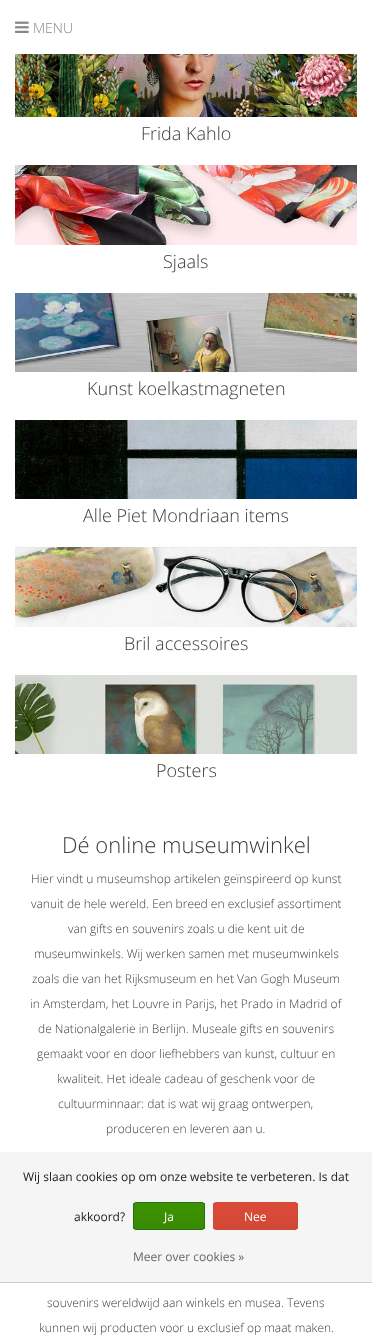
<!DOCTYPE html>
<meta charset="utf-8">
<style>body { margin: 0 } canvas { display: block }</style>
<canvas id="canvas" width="372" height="1339"></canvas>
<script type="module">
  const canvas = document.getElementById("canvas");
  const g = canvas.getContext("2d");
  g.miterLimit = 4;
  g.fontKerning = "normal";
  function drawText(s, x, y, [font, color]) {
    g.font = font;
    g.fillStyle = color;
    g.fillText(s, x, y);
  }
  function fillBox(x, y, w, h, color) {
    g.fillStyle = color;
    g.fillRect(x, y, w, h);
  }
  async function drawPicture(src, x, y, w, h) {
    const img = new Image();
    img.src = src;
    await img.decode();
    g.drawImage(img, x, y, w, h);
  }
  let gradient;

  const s1 = ["300 14px Open Sans", "#888888"];
  const s2 = ["300 18px Open Sans", "#363C3F"];
  const s3 = ["300 22px Open Sans", "#363C3F"];
  const s4 = ["300 12px Open Sans", "#363C3F"];
  const s5 = ["12px Open Sans", "#222222"];
  const s6 = ["12px Open Sans", "#FFFFFF"];
  const s7 = ["12px Open Sans", "#666666"];

  fillBox(0, 0, 372, 1339, "#FFFFFF");
  await drawPicture("pic1.png", 15, 21, 14, 12);
  drawText("MENU", 33, 33, s1);
  await drawPicture("pic2.png", 15, 54, 342, 63);
  drawText("Frida Kahlo", 141, 140, s2);
  await drawPicture("pic3.png", 15, 165, 342, 80);
  drawText("Sjaals", 163, 268, s2);
  await drawPicture("pic4.png", 15, 293, 342, 79);
  drawText("Kunst koelkastmagneten", 87, 395, s2);
  await drawPicture("pic5.png", 15, 420, 342, 79);
  drawText("Alle Piet Mondriaan items", 83, 522, s2);
  await drawPicture("pic6.png", 15, 547, 342, 80);
  drawText("Bril accessoires", 124, 650, s2);
  await drawPicture("pic7.png", 15, 675, 342, 79);
  drawText("Posters", 156, 777, s2);
  drawText("Dé online museumwinkel", 62, 853, s3);
  drawText("Hier vindt u museumshop artikelen geïnspireerd op kunst", 31, 883, s4);
  drawText("vanuit de hele wereld. Een breed en exclusief assortiment", 31, 908, s4);
  drawText("van gifts en souvenirs zoals u die kent uit de", 68, 933, s4);
  drawText("museumwinkels. Wij werken samen met museumwinkels", 34, 958, s4);
  drawText("zoals die van het Rijksmuseum en het Van Gogh Museum", 32, 983, s4);
  drawText("in Amsterdam, het Louvre in Parijs, het Prado in Madrid of", 30, 1008, s4);
  drawText("de Nationalgalerie in Berlijn. Museale gifts en souvenirs", 38, 1033, s4);
  drawText("gemaakt voor en door liefhebbers van kunst, cultuur en", 37, 1058, s4);
  drawText("kwaliteit. Het ideale cadeau of geschenk voor de", 57, 1083, s4);
  drawText("cultuurminnaar: dat is wat wij graag ontwerpen,", 58, 1108, s4);
  drawText("produceren en leveren aan u.", 106, 1133, s4);
  drawText("souvenirs wereldwijd aan winkels en musea. Tevens", 47, 1307, s4);
  drawText("kunnen wij producten voor u exclusief op maat maken.", 39, 1332, s4);
  fillBox(0, 1152, 372, 130, "#F5F5F5");
  fillBox(0, 1282, 372, 1, "#CCCCCC");
  drawText("Wij slaan cookies op om onze website te verbeteren. Is dat", 23, 1181, s5);
  drawText("akkoord?", 74, 1221, s5);
  g.save();
  g.beginPath();
  g.roundRect(133, 1202, 72, 28, 3);
  g.clip();
  gradient = g.createLinearGradient(169, 1203, 169, 1229);
  gradient.addColorStop(0, "#3C9300");
  gradient.addColorStop(1, "#398A00");
  g.fillStyle = gradient;
  g.fillRect(133, 1203, 72, 26);
  g.restore();
  g.beginPath();
  g.roundRect(133.5, 1202.5, 71, 27, 2.5);
  g.strokeStyle = "#29691D";
  g.stroke();
  drawText("Ja", 164, 1221, s6);
  g.save();
  g.beginPath();
  g.roundRect(213, 1202, 85, 28, 3);
  g.clip();
  gradient = g.createLinearGradient(256, 1203, 256, 1229);
  gradient.addColorStop(0, "#DC4A38");
  gradient.addColorStop(1, "#D14836");
  g.fillStyle = gradient;
  g.fillRect(213, 1203, 85, 26);
  g.restore();
  g.beginPath();
  g.roundRect(213.5, 1202.5, 84, 27, 2.5);
  g.strokeStyle = "#D14836";
  g.stroke();
  drawText("Nee", 244, 1221, s6);
  drawText("Meer over cookies »", 133, 1261, s7);
</script>
